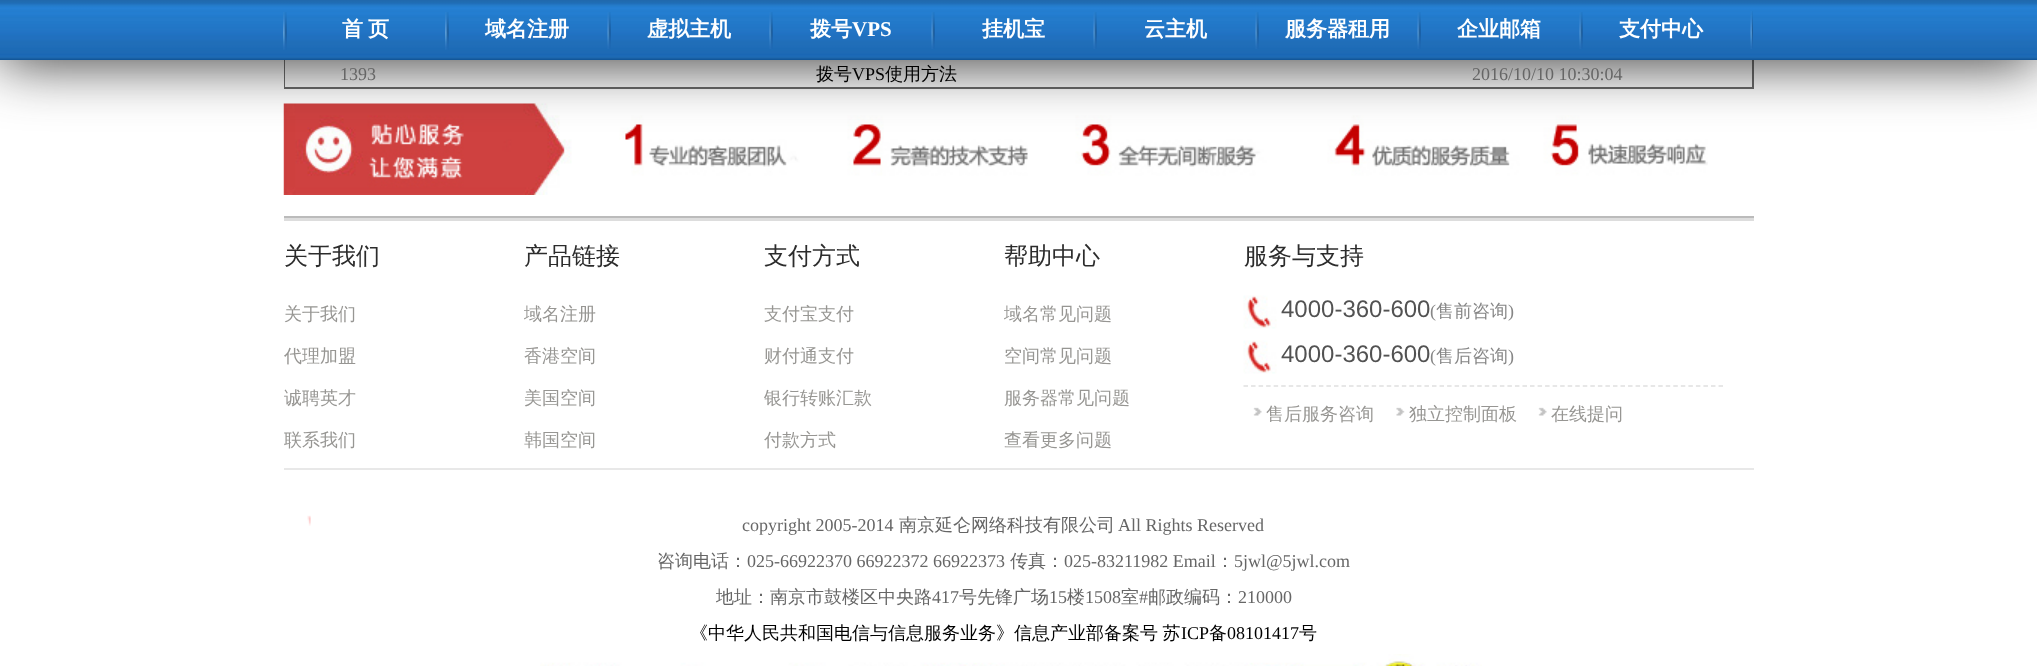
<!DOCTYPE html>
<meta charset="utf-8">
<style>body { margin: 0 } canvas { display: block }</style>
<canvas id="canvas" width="2037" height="666"></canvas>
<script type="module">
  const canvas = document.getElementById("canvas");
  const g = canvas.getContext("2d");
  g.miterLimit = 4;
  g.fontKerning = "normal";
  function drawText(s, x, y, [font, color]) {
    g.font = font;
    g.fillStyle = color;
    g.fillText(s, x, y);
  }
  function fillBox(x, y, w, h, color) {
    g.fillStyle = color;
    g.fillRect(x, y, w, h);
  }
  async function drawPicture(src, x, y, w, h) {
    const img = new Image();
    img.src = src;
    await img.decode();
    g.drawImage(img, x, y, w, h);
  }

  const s1 = ["bold 21px WenQuanYi Zen Hei", "#FFFFFF"];
  const s2 = ["bold 21px Liberation Serif", "#FFFFFF"];
  const s3 = ["18px Liberation Serif", "#666666"];
  const s4 = ["500 18px WenQuanYi Zen Hei", "#000000"];
  const s5 = ["18px Liberation Serif", "#000000"];
  const s6 = ["500 24px WenQuanYi Zen Hei", "#2C2C2C"];
  const s7 = ["500 18px WenQuanYi Zen Hei", "#979693"];
  const s8 = ["24px Liberation Sans", "#525252"];
  const s9 = ["18px Liberation Serif", "#868686"];
  const s10 = ["500 18px WenQuanYi Zen Hei", "#868686"];
  const s11 = ["500 18px WenQuanYi Zen Hei", "#666666"];

  fillBox(0, 0, 2037, 666, "#FFFFFF");
  fillBox(284, 60, 1470, 29, "#666666");
  fillBox(285, 60, 1467, 27, "#FAFAFA");
  await drawPicture("pic5.png", 283, 103, 1425, 92);
  g.fillStyle = "#222222";
  g.filter = "blur(30px)";
  g.beginPath();
  g.rect(0, 0, 2037, 60);
  g.fill();
  g.filter = "none";
  await drawPicture("pic1.png", 0, 0, 2037, 60);
  await drawPicture("pic2.png", 283, 12, 4, 38);
  drawText("首", 342, 36, s1);
  drawText("页", 368, 36, s1);
  await drawPicture("pic2.png", 445, 12, 4, 38);
  drawText("域名注册", 485, 36, s1);
  await drawPicture("pic3.png", 607, 12, 4, 37);
  drawText("虚拟主机", 647, 36, s1);
  await drawPicture("pic3.png", 769, 12, 4, 37);
  drawText("拨号", 810, 36, s1);
  drawText("VPS", 852, 36, s2);
  await drawPicture("pic3.png", 931, 12, 4, 37);
  drawText("挂机宝", 982, 36, s1);
  await drawPicture("pic3.png", 1093, 12, 4, 37);
  drawText("云主机", 1144, 36, s1);
  await drawPicture("pic3.png", 1255, 12, 4, 37);
  drawText("服务器租用", 1285, 36, s1);
  await drawPicture("pic3.png", 1417, 12, 4, 37);
  drawText("企业邮箱", 1457, 36, s1);
  await drawPicture("pic3.png", 1579, 12, 4, 37);
  drawText("支付中心", 1619, 36, s1);
  await drawPicture("pic4.png", 1750, 11, 3, 38);
  drawText("1393", 340, 80, s3);
  drawText("拨号", 816, 80, s4);
  drawText("VPS", 852, 80, s5);
  drawText("使用方法", 885, 80, s4);
  drawText("2016/10/10 10:30:04", 1472, 80, s3);
  fillBox(284, 216, 1470, 2, "#BBBBBB");
  fillBox(284, 218, 1470, 3, "#DDDDDD");
  drawText("关于我们", 284, 264, s6);
  drawText("关于我们", 284, 320, s7);
  drawText("代理加盟", 284, 362, s7);
  drawText("诚聘英才", 284, 404, s7);
  g.save();
  g.beginPath();
  g.rect(284, 218, 1470, 250);
  g.clip();
  drawText("联系我们", 284, 446, s7);
  g.restore();
  drawText("产品链接", 524, 264, s6);
  drawText("域名注册", 524, 320, s7);
  drawText("香港空间", 524, 362, s7);
  drawText("美国空间", 524, 404, s7);
  drawText("韩国空间", 524, 446, s7);
  drawText("支付方式", 764, 264, s6);
  drawText("支付宝支付", 764, 320, s7);
  drawText("财付通支付", 764, 362, s7);
  drawText("银行转账汇款", 764, 404, s7);
  drawText("付款方式", 764, 446, s7);
  drawText("帮助中心", 1004, 264, s6);
  drawText("域名常见问题", 1004, 320, s7);
  drawText("空间常见问题", 1004, 362, s7);
  drawText("服务器常见问题", 1004, 404, s7);
  drawText("查看更多问题", 1004, 446, s7);
  drawText("服务与支持", 1244, 264, s6);
  await drawPicture("pic6.png", 1243, 295, 34, 34);
  drawText("4000-360-600", 1281, 317, s8);
  drawText("(", 1430, 317, s9);
  drawText("售前咨询", 1436, 317, s10);
  drawText(")", 1508, 317, s9);
  await drawPicture("pic6.png", 1243, 340, 34, 34);
  drawText("4000-360-600", 1281, 362, s8);
  drawText("(", 1430, 362, s9);
  drawText("售后咨询", 1436, 362, s10);
  drawText(")", 1508, 362, s9);
  g.beginPath();
  g.moveTo(1243.5, 386);
  g.lineTo(1723.5, 386);
  g.strokeStyle = "#DFDFDF";
  g.lineWidth = 1.5;
  g.setLineDash([4.5, 3.04]);
  g.stroke();
  await drawPicture("pic7.png", 1253, 407, 9, 9);
  drawText("售后服务咨询", 1266, 420, s7);
  await drawPicture("pic8.png", 1396, 407, 9, 9);
  drawText("独立控制面板", 1409, 420, s7);
  await drawPicture("pic7.png", 1538, 407, 9, 9);
  drawText("在线提问", 1551, 420, s7);
  await drawPicture("pic9.png", 307, 515, 4, 11);
  fillBox(284, 468, 1470, 2, "#E8E8E8");
  drawText("copyright 2005-2014", 742, 531, s3);
  drawText("南京延仑网络科技有限公司", 899, 531, s11);
  drawText("All Rights Reserved", 1118, 531, s3);
  drawText("咨询电话：", 657, 567, s11);
  drawText("025-66922370 66922372 66922373", 747, 567, s3);
  drawText("传真：", 1010, 567, s11);
  drawText("025-83211982 Email", 1064, 567, s3);
  drawText("：", 1216, 567, s11);
  drawText("5jwl@5jwl.com", 1234, 567, s3);
  drawText("地址：南京市鼓楼区中央路", 716, 603, s11);
  drawText("417", 932, 603, s3);
  drawText("号先锋广场", 959, 603, s11);
  drawText("15", 1049, 603, s3);
  drawText("楼", 1067, 603, s11);
  drawText("1508", 1085, 603, s3);
  drawText("室", 1121, 603, s11);
  drawText("#", 1139, 603, s3);
  drawText("邮政编码：", 1148, 603, s11);
  drawText("210000", 1238, 603, s3);
  g.wordSpacing = "-1px";
  drawText("《中华人民共和国电信与信息服务业务》信息产业部备案号 苏", 690, 639, s4);
  g.wordSpacing = "0px";
  drawText("ICP", 1181, 639, s5);
  drawText("备", 1209, 639, s4);
  drawText("08101417", 1227, 639, s5);
  drawText("号", 1299, 639, s4);
  await drawPicture("pic10.png", 540, 654, 942, 12);
</script>
